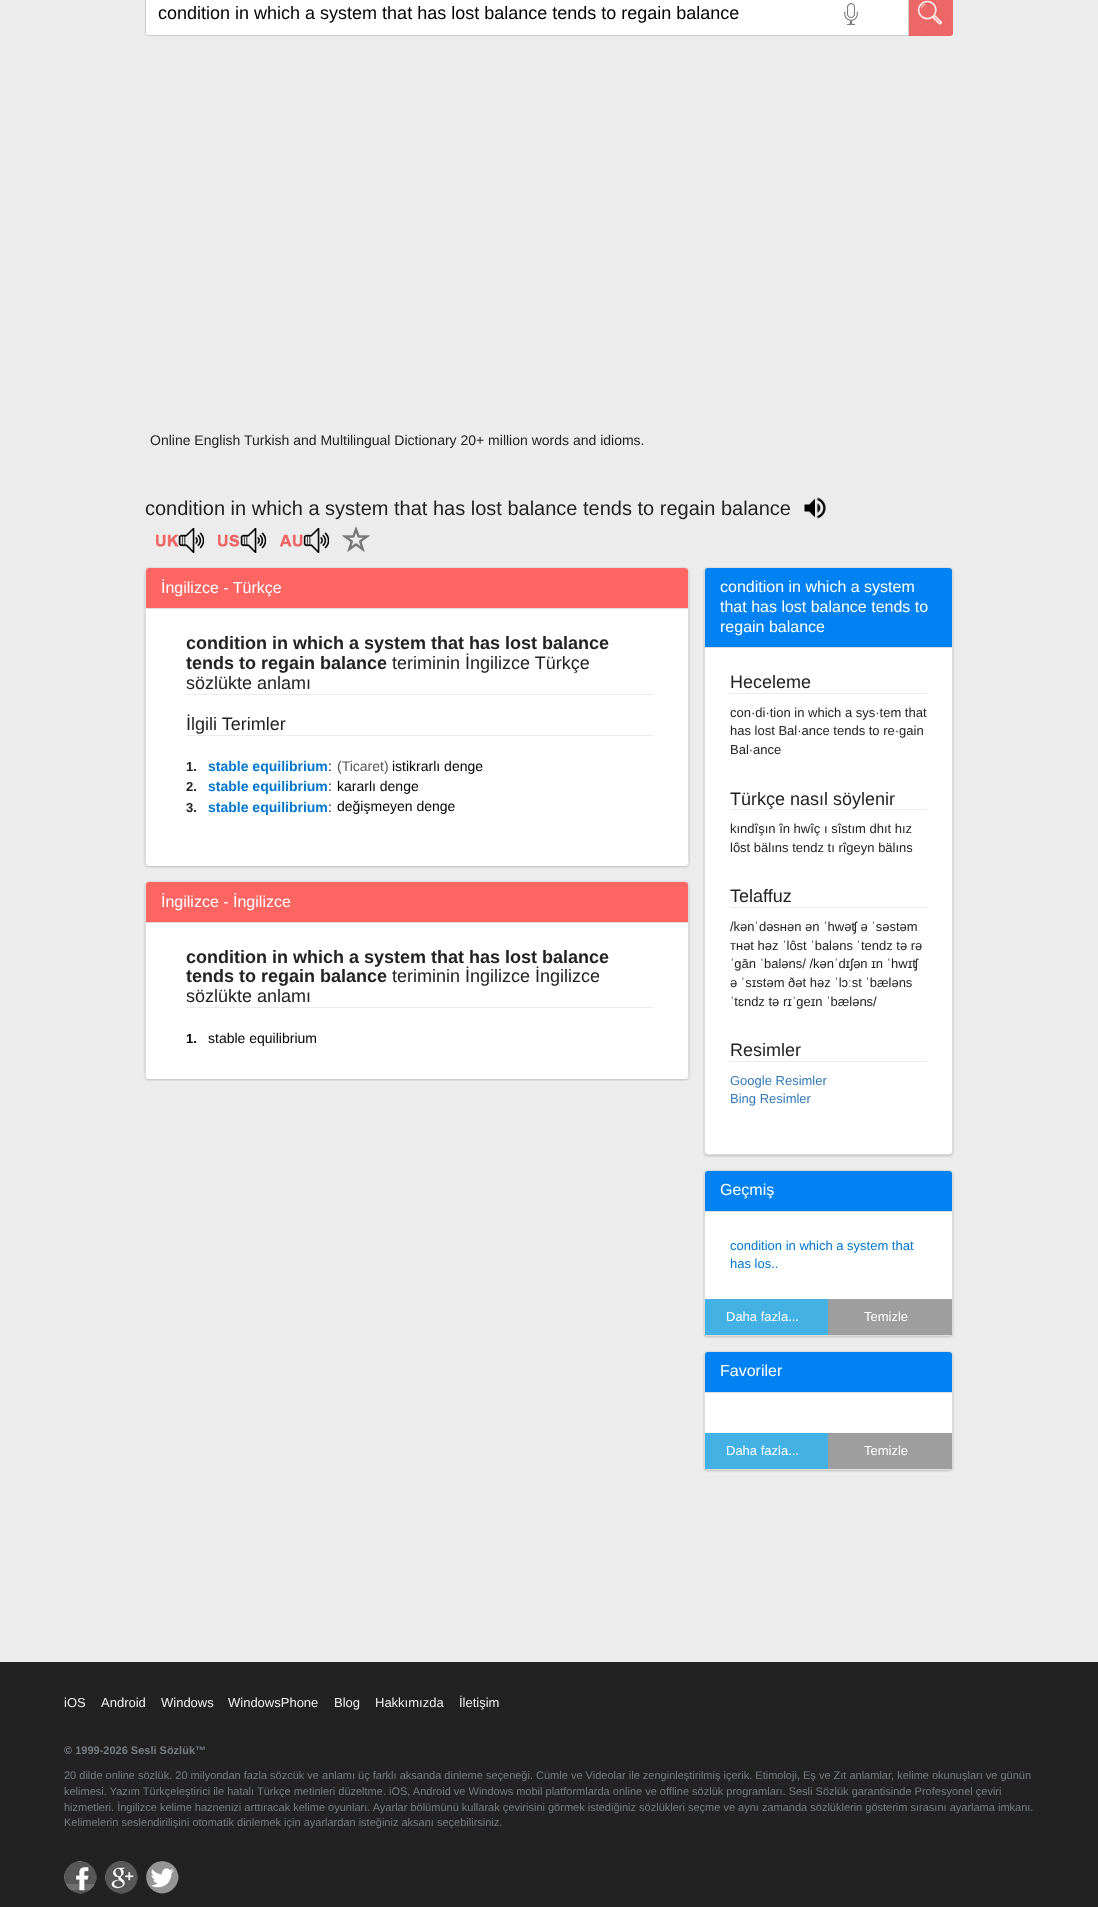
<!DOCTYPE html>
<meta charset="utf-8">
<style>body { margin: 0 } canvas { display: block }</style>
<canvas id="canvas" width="1098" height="1907"></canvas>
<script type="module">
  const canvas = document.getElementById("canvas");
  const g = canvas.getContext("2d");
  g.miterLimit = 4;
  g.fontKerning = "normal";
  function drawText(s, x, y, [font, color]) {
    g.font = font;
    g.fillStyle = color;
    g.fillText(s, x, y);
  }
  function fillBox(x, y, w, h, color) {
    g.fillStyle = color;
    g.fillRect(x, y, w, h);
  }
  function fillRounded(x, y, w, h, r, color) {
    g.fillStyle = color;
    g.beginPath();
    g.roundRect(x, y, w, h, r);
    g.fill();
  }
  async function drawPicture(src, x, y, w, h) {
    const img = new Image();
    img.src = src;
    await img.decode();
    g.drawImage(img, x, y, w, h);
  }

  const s1 = ["18px Liberation Sans", "#000000"];
  const s2 = ["14px Liberation Sans", "#222222"];
  const s3 = ["20px Liberation Sans", "#222222"];
  const s4 = ["16px Liberation Sans", "#FFFFFF"];
  const s5 = ["bold 18px Liberation Sans", "#222222"];
  const s6 = ["18px Liberation Sans", "#222222"];
  const s7 = ["bold 13px Liberation Sans", "#222222"];
  const s8 = ["bold 14px Liberation Sans", "#0077CC"];
  const s9 = ["14px Liberation Sans", "#555555"];
  const s10 = ["14px Liberation Sans", "#000000"];
  const s11 = ["bold 13px Liberation Sans", "#000000"];
  const s12 = ["13px Liberation Sans", "#222222"];
  const s13 = ["13px Liberation Sans", "#337AB7"];
  const s14 = ["13px Liberation Sans", "#0077CC"];
  const s15 = ["13px Liberation Sans", "#FFFFFF"];
  const s16 = ["13px Liberation Sans", "#EEEEEE"];
  const s17 = ["bold 11px Liberation Sans", "#767D84"];
  const s18 = ["11px Liberation Sans", "#767D84"];

  fillBox(0, 0, 1098, 1907, "#EDECEC");
  g.fillStyle = "#FFFFFF";
  g.beginPath();
  g.moveTo(148, -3.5);
  g.lineTo(908.5, -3.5);
  g.lineTo(908.5, 35.5);
  g.lineTo(148, 35.5);
  g.bezierCurveTo(146.5, 35.5, 145.5, 34.5, 145.5, 33);
  g.lineTo(145.5, -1);
  g.bezierCurveTo(145.5, -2.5, 146.5, -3.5, 148, -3.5);
  g.closePath();
  g.fill();
  g.strokeStyle = "#CCCCCC";
  g.stroke();
  drawText("condition in which a system that has lost balance tends to regain balance", 158, 19, s1);
  await drawPicture("pic1.png", 844, 3, 14, 22);
  await drawPicture("pic2.png", 909, 0, 44, 36);
  drawText("Online English Turkish and Multilingual Dictionary 20+ million words and idioms.", 150, 445, s2);
  drawText("condition in which a system that has lost balance tends to regain balance", 145, 515, s3);
  await drawPicture("pic3.png", 804, 497, 22, 22);
  await drawPicture("pic4.png", 156, 527, 49, 26);
  await drawPicture("pic5.png", 218, 527, 49, 26);
  await drawPicture("pic6.png", 280, 527, 50, 26);
  await drawPicture("pic7.png", 342, 526, 28, 26);
  g.fillStyle = "rgba(0, 0, 0, 0.2)";
  g.filter = "blur(1px)";
  g.beginPath();
  g.roundRect(145, 568, 544, 299, 4);
  g.fill();
  g.filter = "none";
  fillRounded(145, 567, 544, 299, 4, "#FFFFFF");
  g.fillStyle = "#DDDDDD";
  g.beginPath();
  g.moveTo(149, 567);
  g.lineTo(685, 567);
  g.bezierCurveTo(687, 567, 689, 569, 689, 571);
  g.lineTo(689, 862);
  g.bezierCurveTo(689, 864, 687, 866, 685, 866);
  g.lineTo(149, 866);
  g.bezierCurveTo(147, 866, 145, 864, 145, 862);
  g.lineTo(145, 571);
  g.bezierCurveTo(145, 569, 147, 567, 149, 567);
  g.closePath();
  g.moveTo(149, 568);
  g.lineTo(685, 568);
  g.bezierCurveTo(687, 568, 688, 569, 688, 571);
  g.lineTo(688, 862);
  g.bezierCurveTo(688, 864, 687, 866, 685, 866);
  g.lineTo(149, 866);
  g.bezierCurveTo(147, 866, 146, 864, 146, 862);
  g.lineTo(146, 571);
  g.bezierCurveTo(146, 569, 147, 568, 149, 568);
  g.closePath();
  g.fill("evenodd");
  g.fillStyle = "#FF6663";
  g.beginPath();
  g.roundRect(146, 568, 542, 41, [3, 3, 0, 0]);
  g.fill();
  fillBox(146, 608, 542, 1, "#DDDDDD");
  drawText("İngilizce - Türkçe", 161, 593, s4);
  fillBox(186, 694, 467, 1, "#EBEBEB");
  drawText("condition in which a system that has lost balance", 186, 649, s5);
  drawText("tends to regain balance", 186, 669, s5);
  drawText("teriminin İngilizce Türkçe", 392, 669, s6);
  drawText("sözlükte anlamı", 186, 689, s6);
  fillBox(186, 735, 467, 1, "#EBEBEB");
  drawText("İlgili Terimler", 186, 730, s6);
  drawText("1.", 186, 771, s7);
  drawText("stable equilibrium", 208, 771, s8);
  drawText(":", 328, 771, s2);
  drawText("(Ticaret)", 337, 771, s9);
  drawText("istikrarlı denge", 392, 771, s10);
  drawText("2.", 186, 791, s7);
  drawText("stable equilibrium", 208, 791, s8);
  drawText(":", 328, 791, s2);
  drawText("kararlı denge", 337, 791, s10);
  drawText("3.", 186, 812, s7);
  drawText("stable equilibrium", 208, 812, s8);
  drawText(":", 328, 812, s2);
  drawText("değişmeyen denge", 337, 811, s10);
  g.fillStyle = "rgba(0, 0, 0, 0.2)";
  g.filter = "blur(1px)";
  g.beginPath();
  g.roundRect(145, 882, 544, 198, 4);
  g.fill();
  g.filter = "none";
  fillRounded(145, 881, 544, 198, 4, "#FFFFFF");
  g.fillStyle = "#DDDDDD";
  g.beginPath();
  g.moveTo(149, 881);
  g.lineTo(685, 881);
  g.bezierCurveTo(687, 881, 689, 883, 689, 885);
  g.lineTo(689, 1075);
  g.bezierCurveTo(689, 1077, 687, 1079, 685, 1079);
  g.lineTo(149, 1079);
  g.bezierCurveTo(147, 1079, 145, 1077, 145, 1075);
  g.lineTo(145, 885);
  g.bezierCurveTo(145, 883, 147, 881, 149, 881);
  g.closePath();
  g.moveTo(149, 882);
  g.lineTo(685, 882);
  g.bezierCurveTo(687, 882, 688, 883, 688, 885);
  g.lineTo(688, 1075);
  g.bezierCurveTo(688, 1077, 687, 1079, 685, 1079);
  g.lineTo(149, 1079);
  g.bezierCurveTo(147, 1079, 146, 1077, 146, 1075);
  g.lineTo(146, 885);
  g.bezierCurveTo(146, 883, 147, 882, 149, 882);
  g.closePath();
  g.fill("evenodd");
  g.fillStyle = "#FF6663";
  g.beginPath();
  g.roundRect(146, 882, 542, 41, [3, 3, 0, 0]);
  g.fill();
  fillBox(146, 922, 542, 1, "#DDDDDD");
  drawText("İngilizce - İngilizce", 161, 907, s4);
  fillBox(186, 1007, 467, 1, "#EBEBEB");
  drawText("condition in which a system that has lost balance", 186, 963, s5);
  drawText("tends to regain balance", 186, 982, s5);
  drawText("teriminin İngilizce İngilizce", 392, 982, s6);
  drawText("sözlükte anlamı", 186, 1002, s6);
  drawText("1.", 186, 1043, s11);
  drawText("stable equilibrium", 208, 1043, s10);
  g.fillStyle = "rgba(0, 0, 0, 0.2)";
  g.filter = "blur(1px)";
  g.beginPath();
  g.roundRect(704, 568, 249, 588, 4);
  g.fill();
  g.filter = "none";
  g.fillStyle = "#FFFFFF";
  g.beginPath();
  g.roundRect(704.5, 567.5, 248, 587, 3.5);
  g.fill();
  g.strokeStyle = "#DDDDDD";
  g.stroke();
  g.fillStyle = "#0082F2";
  g.beginPath();
  g.roundRect(705, 568, 247, 80, [3, 3, 0, 0]);
  g.fill();
  fillBox(705, 647, 247, 1, "#DDDDDD");
  drawText("condition in which a system", 720, 592, s4);
  drawText("that has lost balance tends to", 720, 612, s4);
  drawText("regain balance", 720, 632, s4);
  fillBox(730, 693, 197, 1, "#EBEBEB");
  drawText("Heceleme", 730, 688, s6);
  drawText("con·di·tion in which a sys·tem that", 730, 717, s12);
  drawText("has lost Bal·ance tends to re·gain", 730, 735, s12);
  drawText("Bal·ance", 730, 754, s12);
  fillBox(730, 809, 197, 1, "#EBEBEB");
  drawText("Türkçe nasıl söylenir", 730, 805, s6);
  drawText("kındîşın în hwîç ı sîstım dhıt hız", 730, 833, s12);
  drawText("lôst bälıns tendz tı rîgeyn bälıns", 730, 852, s12);
  fillBox(730, 907, 197, 1, "#EBEBEB");
  drawText("Telaffuz", 730, 902, s6);
  drawText("/kənˈdəsʜən ən ˈhwəʧ ə ˈsəstəm", 730, 931, s12);
  drawText("ᴛʜət həz ˈlôst ˈbaləns ˈtendz tə rə", 730, 950, s12);
  drawText("ˈgān ˈbaləns/ /kənˈdɪʃən ɪn ˈhwɪʧ", 730, 968, s12);
  drawText("ə ˈsɪstəm ðət həz ˈlɔːst ˈbæləns", 730, 987, s12);
  drawText("ˈtɛndz tə rɪˈɡeɪn ˈbæləns/", 730, 1006, s12);
  fillBox(730, 1061, 197, 1, "#EBEBEB");
  drawText("Resimler", 730, 1056, s6);
  drawText("Google Resimler", 730, 1085, s13);
  drawText("Bing Resimler", 730, 1103, s13);
  g.fillStyle = "rgba(0, 0, 0, 0.2)";
  g.filter = "blur(1px)";
  g.beginPath();
  g.roundRect(704, 1171, 249, 166, 4);
  g.fill();
  g.filter = "none";
  g.fillStyle = "#FFFFFF";
  g.beginPath();
  g.roundRect(704.5, 1170.5, 248, 165, 3.5);
  g.fill();
  g.stroke();
  g.fillStyle = "#0082F2";
  g.beginPath();
  g.roundRect(705, 1171, 247, 41, [3, 3, 0, 0]);
  g.fill();
  fillBox(705, 1211, 247, 1, "#DDDDDD");
  drawText("Geçmiş", 720, 1195, s4);
  drawText("condition in which a system that", 730, 1250, s14);
  drawText("has los..", 730, 1268, s14);
  fillBox(705, 1299, 123, 36, "#44B1E5");
  drawText("Daha fazla...", 726, 1321, s15);
  fillBox(828, 1299, 124, 36, "#9E9E9E");
  drawText("Temizle", 864, 1321, s15);
  g.fillStyle = "rgba(0, 0, 0, 0.2)";
  g.filter = "blur(1px)";
  g.beginPath();
  g.roundRect(704, 1352, 249, 119, 4);
  g.fill();
  g.filter = "none";
  g.fillStyle = "#FFFFFF";
  g.beginPath();
  g.roundRect(704.5, 1351.5, 248, 118, 3.5);
  g.fill();
  g.stroke();
  g.fillStyle = "#0082F2";
  g.beginPath();
  g.roundRect(705, 1352, 247, 41, [3, 3, 0, 0]);
  g.fill();
  fillBox(705, 1392, 247, 1, "#DDDDDD");
  drawText("Favoriler", 720, 1376, s4);
  fillBox(705, 1433, 123, 36, "#44B1E5");
  drawText("Daha fazla...", 726, 1455, s15);
  fillBox(828, 1433, 124, 36, "#9E9E9E");
  drawText("Temizle", 864, 1455, s15);
  fillBox(0, 1662, 1098, 245, "#222222");
  drawText("iOS", 64, 1707, s16);
  drawText("Android", 101, 1707, s16);
  drawText("Windows", 161, 1707, s16);
  drawText("WindowsPhone", 228, 1707, s16);
  drawText("Blog", 334, 1707, s16);
  drawText("Hakkımızda", 375, 1707, s16);
  drawText("İletişim", 459, 1707, s16);
  drawText("© 1999-2026 Sesli Sözlük™", 64, 1754, s17);
  drawText("20 dilde online sözlük. 20 milyondan fazla sözcük ve anlamı üç farklı aksanda dinleme seçeneği. Cümle ve Videolar ile zenginleştirilmiş içerik. Etimoloji, Eş ve Zıt anlamlar, kelime okunuşları ve günün", 64, 1779, s18);
  drawText("kelimesi. Yazım Türkçeleştirici ile hatalı Türkçe metinleri düzeltme. iOS, Android ve Windows mobil platformlarda online ve offline sözlük programları. Sesli Sözlük garantisinde Profesyonel çeviri", 64, 1795, s18);
  drawText("hizmetleri. İngilizce kelime haznenizi arttıracak kelime oyunları. Ayarlar bölümünü kullarak çevirisini görmek istediğiniz sözlükleri seçme ve aynı zamanda sözlüklerin gösterim sırasını ayarlama imkanı.", 64, 1811, s18);
  drawText("Kelimelerin seslendirilişini otomatik dinlemek için ayarlardan isteğiniz aksanı seçebilirsiniz.", 64, 1826, s18);
  await drawPicture("pic8.png", 64, 1861, 33, 33);
  await drawPicture("pic9.png", 105, 1861, 33, 33);
  await drawPicture("pic10.png", 146, 1861, 33, 33);
</script>
